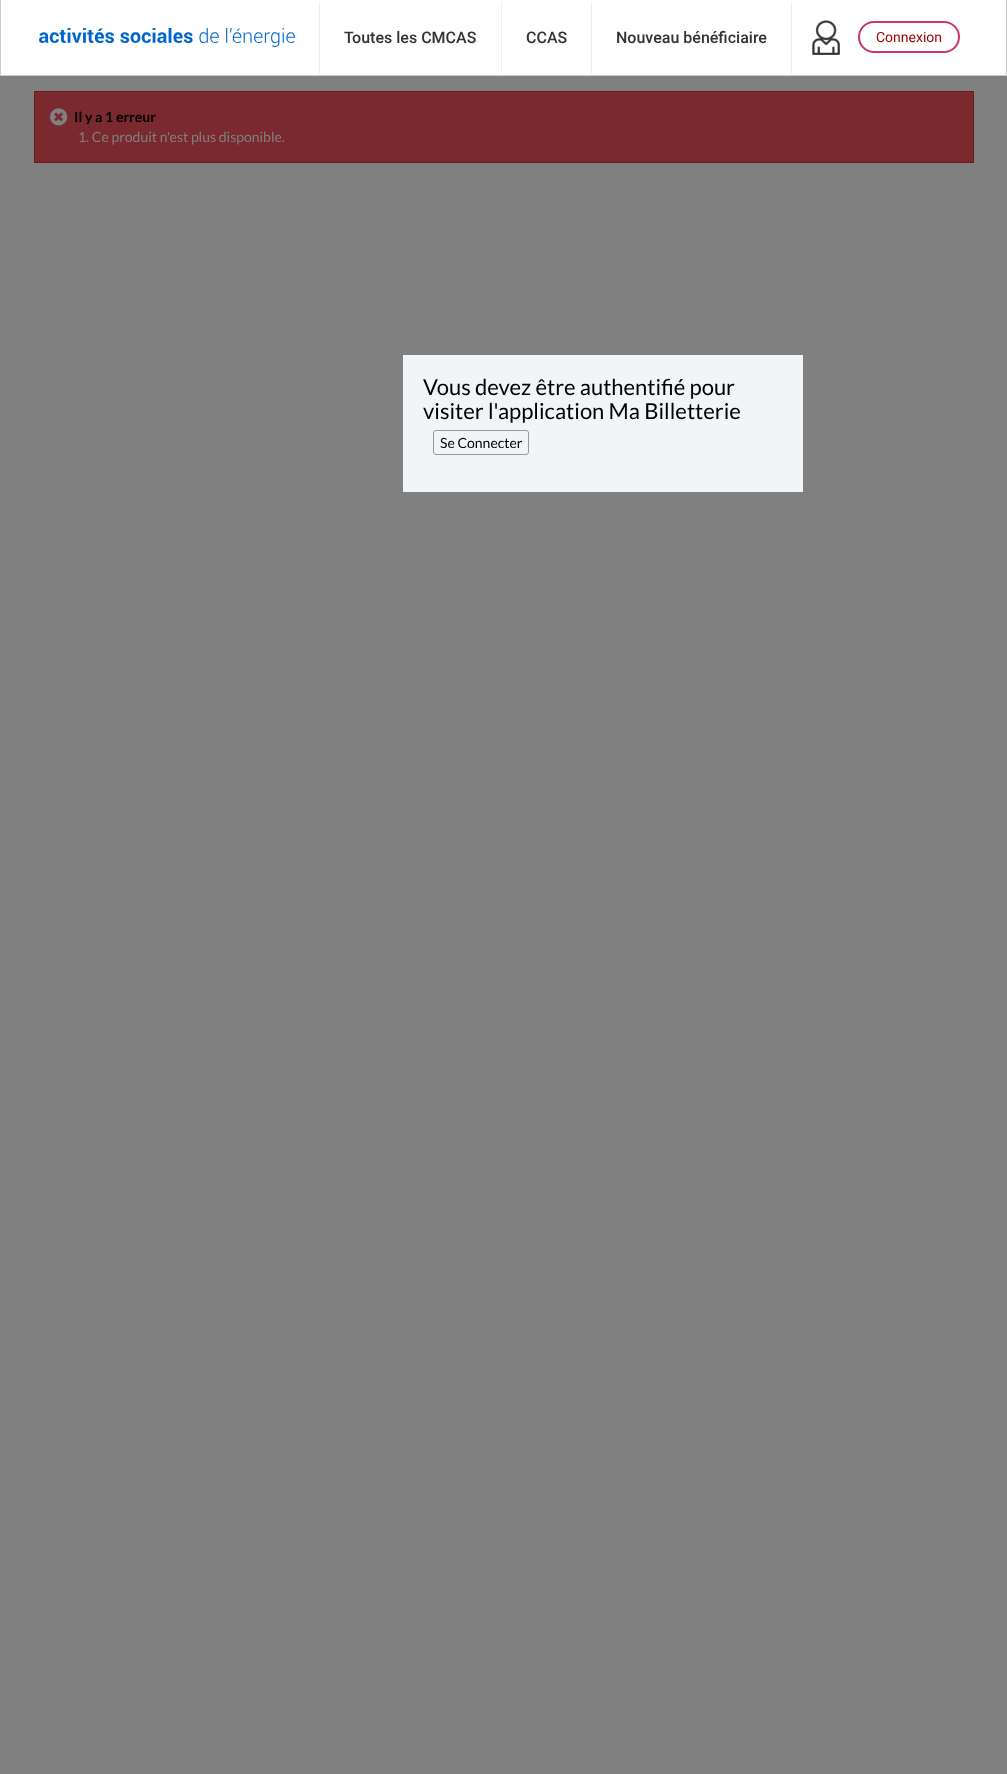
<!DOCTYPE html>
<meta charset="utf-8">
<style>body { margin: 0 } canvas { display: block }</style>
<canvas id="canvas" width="1007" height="1774"></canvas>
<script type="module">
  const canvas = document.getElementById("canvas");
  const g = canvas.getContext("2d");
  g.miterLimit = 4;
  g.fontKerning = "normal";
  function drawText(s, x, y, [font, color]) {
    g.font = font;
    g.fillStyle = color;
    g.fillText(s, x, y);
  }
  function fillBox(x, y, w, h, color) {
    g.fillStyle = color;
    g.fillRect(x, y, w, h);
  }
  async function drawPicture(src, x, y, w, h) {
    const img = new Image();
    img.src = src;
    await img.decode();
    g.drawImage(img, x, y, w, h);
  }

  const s1 = ["500 16px Roboto", "#333333"];
  const s2 = ["14px Roboto", "#9C0000"];
  const s3 = ["bold 14px Lato", "#000000"];
  const s4 = ["14px Lato", "#808080"];
  const s5 = ["22px Lato", "#000000"];
  const s6 = ["14px Lato", "#000000"];

  fillBox(0, 0, 1007, 1774, "#808080");
  fillBox(1, 0, 1005, 75, "#FFFFFF");
  fillBox(1006, 0, 1, 76, "#CCCCCC");
  fillBox(0, 75, 1007, 1, "#CCCCCC");
  fillBox(0, 0, 1, 76, "#CCCCCC");
  await drawPicture("pic1.png", 39, 28, 256, 19);
  fillBox(319, 2, 1, 72, "#EEEEEE");
  drawText("Toutes les CMCAS", 344, 43, s1);
  fillBox(501, 2, 1, 72, "#EEEEEE");
  drawText("CCAS", 526, 43, s1);
  fillBox(591, 2, 1, 72, "#EEEEEE");
  drawText("Nouveau bénéficiaire", 616, 43, s1);
  fillBox(791, 2, 1, 72, "#EEEEEE");
  await drawPicture("pic2.png", 812, 20, 28, 35);
  g.beginPath();
  g.roundRect(859, 22, 100, 30, 15);
  g.strokeStyle = "#CC3366";
  g.lineWidth = 2;
  g.stroke();
  drawText("Connexion", 876, 42, s2);
  g.fillStyle = "#7A292E";
  g.beginPath();
  g.rect(34.5, 91.5, 939, 71);
  g.fill();
  g.strokeStyle = "#6A191F";
  g.lineWidth = 1;
  g.stroke();
  await drawPicture("pic3.png", 50, 108, 18, 18);
  drawText("Il y a 1 erreur", 74, 122, s3);
  drawText("1. Ce produit n'est plus disponible.", 78, 142, s4);
  fillBox(403, 355, 400, 137, "#F2F5F8");
  drawText("Vous devez être authentifié pour", 423, 395, s5);
  drawText("visiter l'application Ma Billetterie", 423, 419, s5);
  g.beginPath();
  g.roundRect(433.5, 430.5, 95, 24, 2.5);
  g.strokeStyle = "#999999";
  g.stroke();
  drawText("Se Connecter", 440, 448, s6);
</script>
